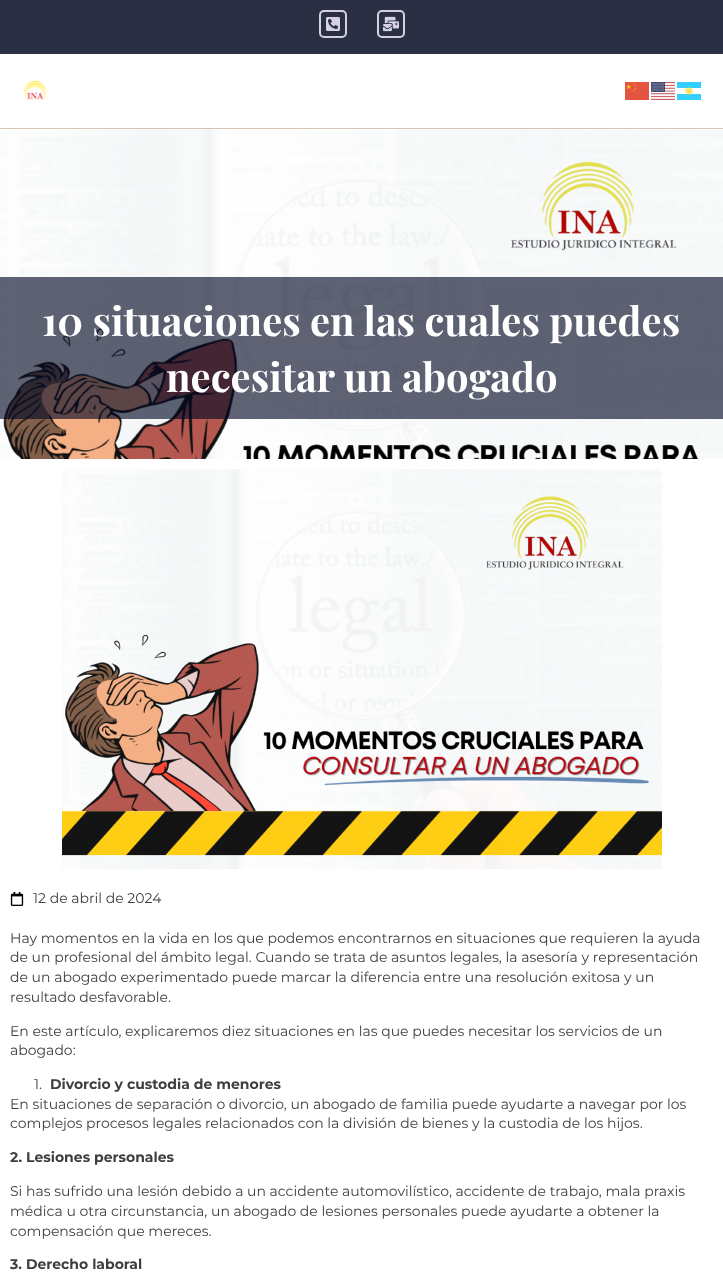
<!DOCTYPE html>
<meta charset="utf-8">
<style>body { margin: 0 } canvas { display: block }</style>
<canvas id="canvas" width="723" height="1280"></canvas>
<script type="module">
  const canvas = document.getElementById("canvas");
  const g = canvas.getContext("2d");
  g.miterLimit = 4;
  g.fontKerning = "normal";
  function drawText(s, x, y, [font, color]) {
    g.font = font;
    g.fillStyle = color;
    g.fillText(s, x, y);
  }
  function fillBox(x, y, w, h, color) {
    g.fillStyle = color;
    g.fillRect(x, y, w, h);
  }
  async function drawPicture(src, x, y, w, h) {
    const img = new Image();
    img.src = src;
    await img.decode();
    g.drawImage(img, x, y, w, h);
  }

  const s1 = ["bold 40px Playfair Display", "#FFFFFF"];
  const s2 = ["14px Montserrat", "#3E3E3E"];
  const s3 = ["bold 14px Montserrat", "#3E3E3E"];

  fillBox(0, 0, 723, 1280, "#FFFFFF");
  fillBox(0, 0, 723, 54, "#2A2F44");
  g.beginPath();
  g.roundRect(320, 11, 26, 26, 4);
  g.strokeStyle = "#D5D0E3";
  g.lineWidth = 2;
  g.stroke();
  await drawPicture("pic1.png", 326, 17, 14, 14);
  g.beginPath();
  g.roundRect(378, 11, 26, 26, 4);
  g.stroke();
  await drawPicture("pic2.png", 383, 16, 16, 16);
  fillBox(0, 128, 723, 1, "#D8C5B9");
  await drawPicture("pic3.png", 23, 81, 24, 19);
  await drawPicture("pic4.png", 625, 82, 24, 18);
  await drawPicture("pic5.png", 651, 82, 24, 18);
  await drawPicture("pic6.png", 677, 82, 24, 18);
  await drawPicture("pic7.png", 0, 129, 723, 330);
  fillBox(0, 277, 723, 142, "rgba(2, 8, 35, 0.63)");
  drawText("10 situaciones en las cuales puedes", 42, 336, s1);
  drawText("necesitar un abogado", 166, 392, s1);
  await drawPicture("pic8.png", 62, 469, 600, 400);
  await drawPicture("pic9.png", 10, 892, 14, 14);
  drawText("12 de abril de 2024", 33, 903, s2);
  drawText("Hay momentos en la vida en los que podemos encontrarnos en situaciones que requieren la ayuda", 10, 943, s2);
  drawText("de un profesional del ámbito legal. Cuando se trata de asuntos legales, la asesoría y representación", 10, 962, s2);
  drawText("de un abogado experimentado puede marcar la diferencia entre una resolución exitosa y un", 10, 982, s2);
  drawText("resultado desfavorable.", 10, 1002, s2);
  drawText("En este artículo, explicaremos diez situaciones en las que puedes necesitar los servicios de un", 10, 1036, s2);
  drawText("abogado:", 10, 1055, s2);
  drawText("1.", 34, 1089, s2);
  drawText("Divorcio y custodia de menores", 50, 1089, s3);
  drawText("En situaciones de separación o divorcio, un abogado de familia puede ayudarte a navegar por los", 10, 1109, s2);
  drawText("complejos procesos legales relacionados con la división de bienes y la custodia de los hijos.", 10, 1128, s2);
  drawText("2. Lesiones personales", 10, 1162, s3);
  drawText("Si has sufrido una lesión debido a un accidente automovilístico, accidente de trabajo, mala praxis", 10, 1196, s2);
  drawText("médica u otra circunstancia, un abogado de lesiones personales puede ayudarte a obtener la", 10, 1216, s2);
  drawText("compensación que mereces.", 10, 1236, s2);
  drawText("3. Derecho laboral", 10, 1269, s3);
</script>
